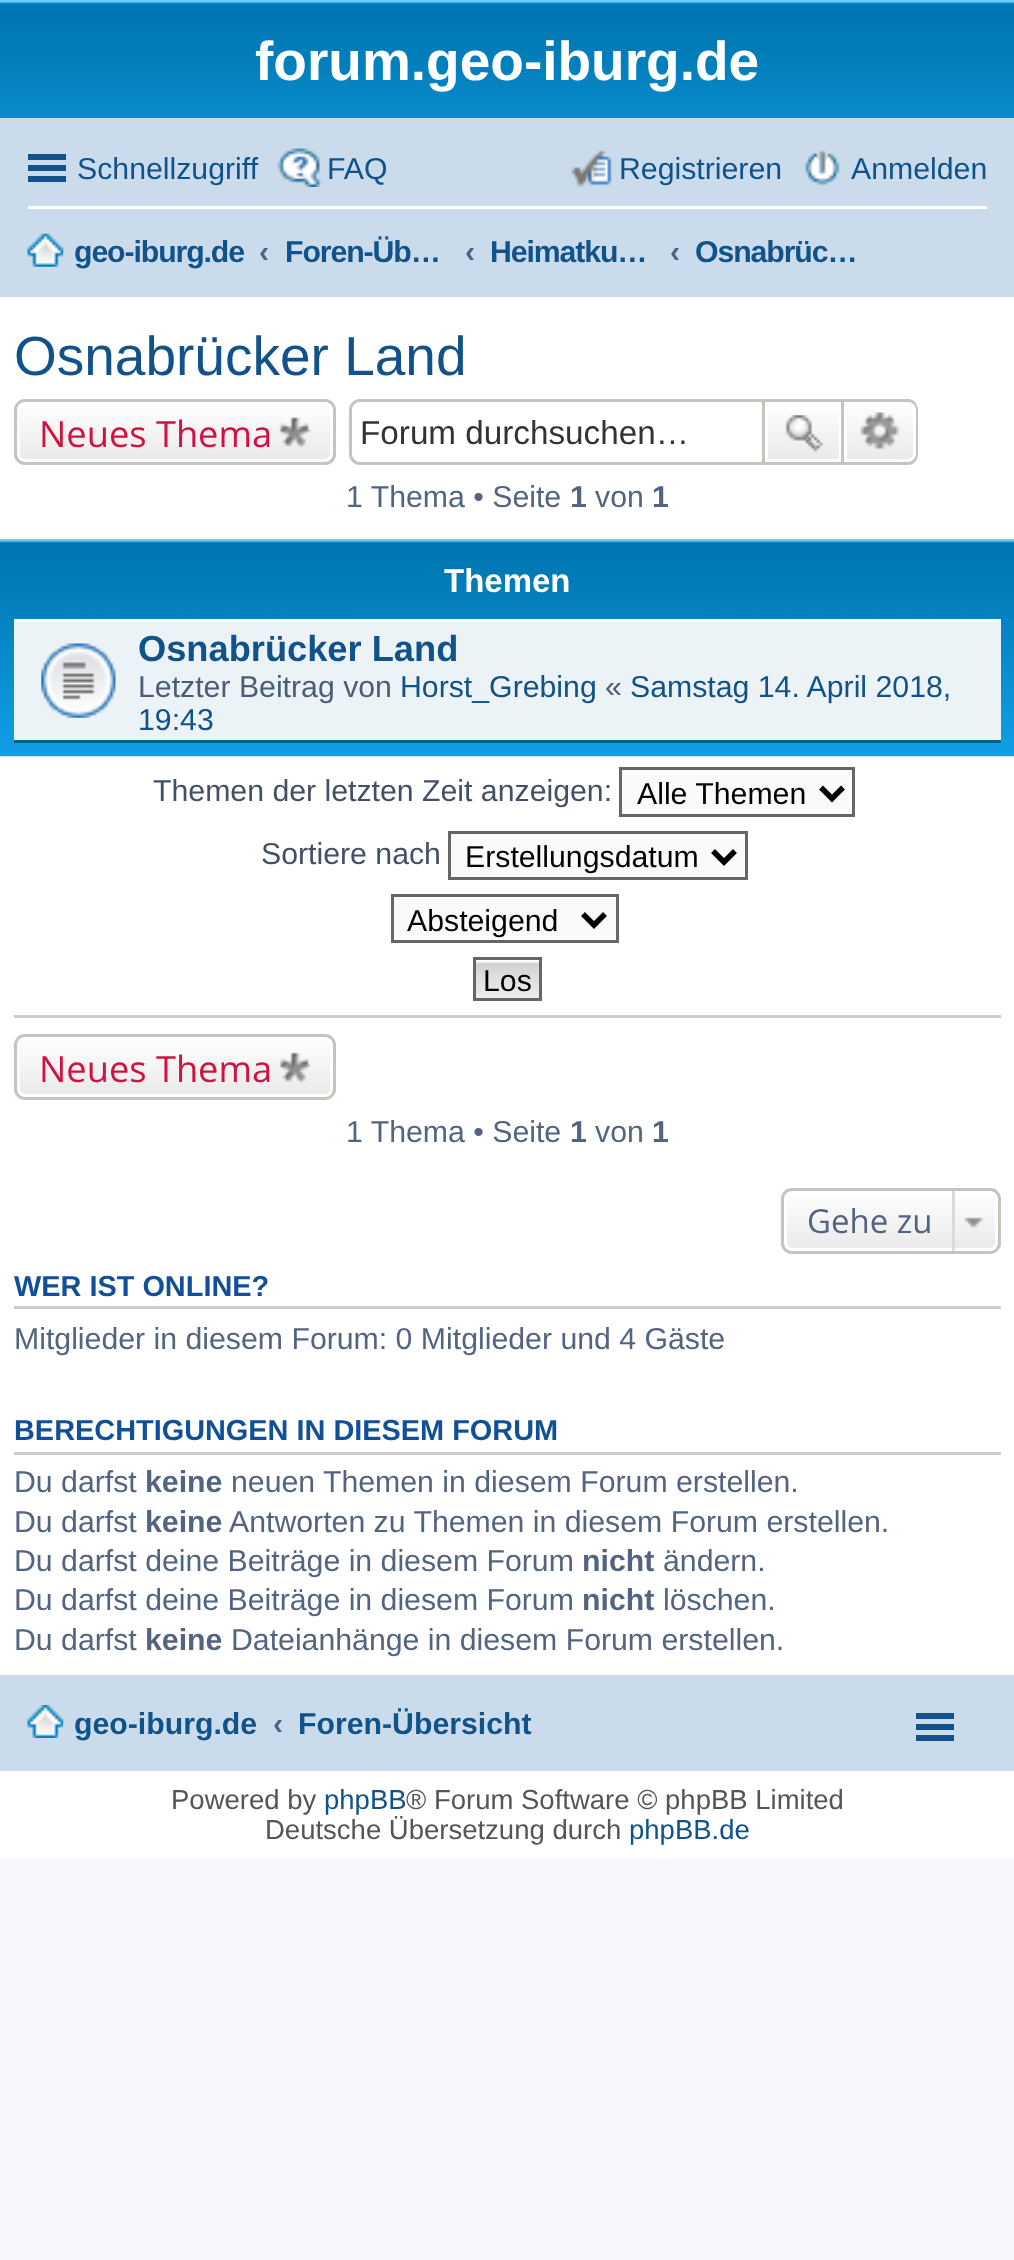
<!DOCTYPE html>
<meta charset="utf-8">
<style>body { margin: 0 } canvas { display: block }</style>
<canvas id="canvas" width="1014" height="2260"></canvas>
<script type="module">
  const canvas = document.getElementById("canvas");
  const g = canvas.getContext("2d");
  g.miterLimit = 4;
  g.fontKerning = "normal";
  function drawText(s, x, y, [font, color]) {
    g.font = font;
    g.fillStyle = color;
    g.fillText(s, x, y);
  }
  function fillBox(x, y, w, h, color) {
    g.fillStyle = color;
    g.fillRect(x, y, w, h);
  }
  async function drawPicture(src, x, y, w, h) {
    const img = new Image();
    img.src = src;
    await img.decode();
    g.drawImage(img, x, y, w, h);
  }
  let gradient;

  const s1 = ["bold 55px Liberation Sans", "#FFFFFF"];
  const s2 = ["30.25px Liberation Sans", "#105289"];
  const s3 = ["bold 30.25px Liberation Sans", "#105289"];
  const s4 = ["bold 30.25px Liberation Sans", "#536482"];
  const s5 = ["55px Liberation Sans", "#105289"];
  const s6 = ["36.25px Open Sans", "#D31141"];
  const s7 = ["33.25px Liberation Sans", "#333333"];
  const s8 = ["30.25px Liberation Sans", "#536482"];
  const s9 = ["bold 33px Liberation Sans", "#FFFFFF"];
  const s10 = ["bold 36.25px Liberation Sans", "#105289"];
  const s11 = ["30.25px Liberation Sans", "#4C5D77"];
  const s12 = ["30.25px Liberation Sans", "#425067"];
  const s13 = ["30.25px Liberation Sans", "#000000"];
  const s14 = ["33px Open Sans", "#536482"];
  const s15 = ["bold 28.9px Liberation Sans", "#115098"];
  const s16 = ["27.5px Liberation Sans", "#555555"];
  const s17 = ["27.5px Liberation Sans", "#105289"];

  fillBox(0, 0, 1014, 2260, "#F5F7FA");
  fillBox(0, 297, 1014, 1562, "#FFFFFF");
  await drawPicture("pic1.png", 0, 0, 1014, 118);
  drawText("forum.geo-iburg.de", 255, 80, s1);
  fillBox(0, 118, 1014, 179, "#CADCEB");
  fillBox(28, 154, 38, 6, "#105289");
  fillBox(28, 165, 38, 6, "#105289");
  fillBox(28, 176, 38, 6, "#105289");
  drawText("Schnellzugriff", 77, 179, s2);
  await drawPicture("pic2.png", 277, 148, 45, 39);
  drawText("FAQ", 327, 179, s2);
  await drawPicture("pic3.png", 571, 150, 41, 37);
  drawText("Registrieren", 619, 179, s2);
  await drawPicture("pic4.png", 805, 150, 35, 36);
  drawText("Anmelden", 851, 179, s2);
  fillBox(28, 206, 959, 3, "#FFFFFF");
  await drawPicture("pic5.png", 27, 233, 37, 34);
  g.letterSpacing = "-1.1px";
  drawText("geo-iburg.de", 74, 262, s3);
  g.letterSpacing = "0px";
  drawText("‹", 259, 262, s4);
  g.letterSpacing = "-1.1px";
  drawText("Foren-Üb…", 285, 262, s3);
  g.letterSpacing = "0px";
  drawText("‹", 465, 262, s4);
  g.letterSpacing = "-1.1px";
  drawText("Heimatku…", 490, 262, s3);
  g.letterSpacing = "0px";
  drawText("‹", 670, 262, s4);
  g.letterSpacing = "-1.1px";
  drawText("Osnabrüc…", 695, 262, s3);
  g.letterSpacing = "0px";
  drawText("Osnabrücker Land", 14, 375, s5);
  g.save();
  g.beginPath();
  g.roundRect(14, 399, 322, 66, 11);
  g.clip();
  gradient = g.createLinearGradient(175, 402, 175, 462);
  gradient.addColorStop(0, "#FFFFFF");
  gradient.addColorStop(1, "#E9E9E9");
  g.fillStyle = gradient;
  g.fillRect(14, 402, 322, 60);
  g.restore();
  g.beginPath();
  g.roundRect(18.5, 403.5, 313, 57, 6.5);
  g.strokeStyle = "#FFFFFF";
  g.lineWidth = 3;
  g.stroke();
  g.beginPath();
  g.roundRect(15.5, 400.5, 319, 63, 9.5);
  g.strokeStyle = "#C7C3BF";
  g.stroke();
  drawText("Neues Thema", 39, 447, s6);
  await drawPicture("pic6.png", 279, 417, 32, 31);
  g.fillStyle = "#C7C3BF";
  g.beginPath();
  g.moveTo(360, 399);
  g.lineTo(762, 399);
  g.lineTo(762, 465);
  g.lineTo(360, 465);
  g.bezierCurveTo(354, 465, 349, 460, 349, 454);
  g.lineTo(349, 410);
  g.bezierCurveTo(349, 404, 354, 399, 360, 399);
  g.closePath();
  g.moveTo(360, 402);
  g.lineTo(762, 402);
  g.lineTo(762, 462);
  g.lineTo(360, 462);
  g.bezierCurveTo(356, 462, 352, 458, 352, 454);
  g.lineTo(352, 410);
  g.bezierCurveTo(352, 405, 356, 402, 360, 402);
  g.closePath();
  g.fill("evenodd");
  drawText("Forum durchsuchen…", 360, 444, s7);
  gradient = g.createLinearGradient(803, 402, 803, 462);
  gradient.addColorStop(0, "#FFFFFF");
  gradient.addColorStop(1, "#E9E9E9");
  g.fillStyle = gradient;
  g.fillRect(768, 409, 71, 50);
  g.strokeRect(763.5, 400.5, 79, 63);
  await drawPicture("pic7.png", 785, 415, 39, 37);
  gradient = g.createLinearGradient(880, 402, 880, 462);
  gradient.addColorStop(0, "#FFFFFF");
  gradient.addColorStop(1, "#E9E9E9");
  g.fillStyle = gradient;
  g.beginPath();
  g.roundRect(845.5, 403.5, 69, 57, [0, 6.5, 6.5, 0]);
  g.fill();
  g.strokeStyle = "#FFFFFF";
  g.stroke();
  g.fillStyle = "#C7C3BF";
  g.beginPath();
  g.moveTo(844, 399);
  g.lineTo(908, 399);
  g.bezierCurveTo(914, 399, 918, 404, 918, 410);
  g.lineTo(918, 454);
  g.bezierCurveTo(918, 460, 914, 465, 908, 465);
  g.lineTo(844, 465);
  g.closePath();
  g.moveTo(844, 402);
  g.lineTo(908, 402);
  g.bezierCurveTo(912, 402, 916, 405, 916, 410);
  g.lineTo(916, 454);
  g.bezierCurveTo(916, 458, 912, 462, 908, 462);
  g.lineTo(844, 462);
  g.closePath();
  g.fill("evenodd");
  await drawPicture("pic8.png", 860, 412, 40, 38);
  drawText("1 Thema • Seite", 346, 507, s8);
  drawText("1", 570, 507, s4);
  drawText("von", 595, 507, s8);
  drawText("1", 652, 507, s4);
  await drawPicture("pic9.png", 0, 539, 1014, 218);
  drawText("Themen", 444, 592, s9);
  fillBox(14, 622, 987, 118, "#ECF3F7");
  fillBox(14, 619, 987, 3, "#FFFFFF");
  fillBox(14, 740, 987, 3, "#00608F");
  await drawPicture("pic10.png", 41, 643, 75, 75);
  drawText("Osnabrücker Land", 138, 661, s10);
  drawText("Letzter Beitrag von", 138, 697, s11);
  drawText("Horst_Grebing", 400, 697, s2);
  drawText("«", 605, 697, s11);
  drawText("Samstag 14. April 2018,", 630, 697, s2);
  drawText("19:43", 138, 730, s2);
  drawText("Themen der letzten Zeit anzeigen:", 153, 801, s12);
  g.fillStyle = "#FAFAFA";
  g.beginPath();
  g.rect(620.5, 768.5, 233, 47);
  g.fill();
  g.strokeStyle = "#666666";
  g.stroke();
  g.beginPath();
  g.moveTo(821, 787.5);
  g.lineTo(832, 798.5);
  g.lineTo(843, 787.5);
  g.strokeStyle = "#000000";
  g.lineWidth = 5.5;
  g.stroke();
  drawText("Alle Themen", 637, 804, s13);
  drawText("Sortiere nach", 261, 864, s12);
  g.fillStyle = "#FAFAFA";
  g.beginPath();
  g.rect(449.5, 832.5, 297, 46);
  g.fill();
  g.strokeStyle = "#666666";
  g.lineWidth = 3;
  g.stroke();
  g.beginPath();
  g.moveTo(713, 851);
  g.lineTo(724, 862);
  g.lineTo(735, 851);
  g.strokeStyle = "#000000";
  g.lineWidth = 5.5;
  g.stroke();
  drawText("Erstellungsdatum", 465, 867, s13);
  g.fillStyle = "#FAFAFA";
  g.beginPath();
  g.rect(392.5, 895.5, 225, 46);
  g.fill();
  g.strokeStyle = "#666666";
  g.lineWidth = 3;
  g.stroke();
  g.beginPath();
  g.moveTo(583, 914);
  g.lineTo(594, 925);
  g.lineTo(605, 914);
  g.strokeStyle = "#000000";
  g.lineWidth = 5.5;
  g.stroke();
  drawText("Absteigend", 407, 931, s13);
  await drawPicture("pic11.png", 476, 960, 63, 38);
  g.strokeStyle = "#666666";
  g.lineWidth = 3;
  g.strokeRect(474.5, 958.5, 66, 41);
  drawText("Los", 483, 991, s13);
  fillBox(14, 1015, 987, 3, "#CCCCCC");
  g.save();
  g.beginPath();
  g.roundRect(14, 1034, 322, 66, 11);
  g.clip();
  gradient = g.createLinearGradient(175, 1037, 175, 1097);
  gradient.addColorStop(0, "#FFFFFF");
  gradient.addColorStop(1, "#E9E9E9");
  g.fillStyle = gradient;
  g.fillRect(14, 1037, 322, 60);
  g.restore();
  g.beginPath();
  g.roundRect(18.5, 1038.5, 313, 57, 6.5);
  g.strokeStyle = "#FFFFFF";
  g.stroke();
  g.beginPath();
  g.roundRect(15.5, 1035.5, 319, 63, 9.5);
  g.strokeStyle = "#C7C3BF";
  g.stroke();
  drawText("Neues Thema", 39, 1082, s6);
  await drawPicture("pic12.png", 279, 1052, 32, 32);
  drawText("1 Thema • Seite", 346, 1142, s8);
  drawText("1", 570, 1142, s4);
  drawText("von", 595, 1142, s8);
  drawText("1", 652, 1142, s4);
  g.save();
  g.beginPath();
  g.roundRect(781, 1188, 220, 66, 11);
  g.clip();
  gradient = g.createLinearGradient(891, 1191, 891, 1251);
  gradient.addColorStop(0, "#FFFFFF");
  gradient.addColorStop(1, "#E9E9E9");
  g.fillStyle = gradient;
  g.fillRect(781, 1191, 220, 60);
  g.restore();
  g.beginPath();
  g.roundRect(785.5, 1192.5, 211, 57, 6.5);
  g.strokeStyle = "#FFFFFF";
  g.stroke();
  g.beginPath();
  g.roundRect(782.5, 1189.5, 217, 63, 9.5);
  g.strokeStyle = "#C7C3BF";
  g.stroke();
  drawText("Gehe zu", 807, 1233, s14);
  await drawPicture("pic13.png", 964, 1217, 20, 12);
  fillBox(952, 1191, 3, 60, "#DADADA");
  fillBox(14, 1306, 987, 3, "#CCCCCC");
  drawText("WER IST ONLINE?", 14, 1296, s15);
  drawText("Mitglieder in diesem Forum: 0 Mitglieder und 4 Gäste", 14, 1349, s8);
  fillBox(14, 1452, 987, 3, "#CCCCCC");
  drawText("BERECHTIGUNGEN IN DIESEM FORUM", 14, 1440, s15);
  drawText("Du darfst", 14, 1492, s8);
  drawText("keine", 145, 1492, s4);
  drawText("neuen Themen in diesem Forum erstellen.", 231, 1492, s8);
  drawText("Du darfst", 14, 1532, s8);
  drawText("keine", 145, 1532, s4);
  drawText("Antworten zu Themen in diesem Forum erstellen.", 229, 1532, s8);
  drawText("Du darfst deine Beiträge in diesem Forum", 14, 1571, s8);
  drawText("nicht", 582, 1571, s4);
  drawText("ändern.", 663, 1571, s8);
  drawText("Du darfst deine Beiträge in diesem Forum", 14, 1610, s8);
  drawText("nicht", 582, 1610, s4);
  drawText("löschen.", 663, 1610, s8);
  drawText("Du darfst", 14, 1650, s8);
  drawText("keine", 145, 1650, s4);
  drawText("Dateianhänge in diesem Forum erstellen.", 231, 1650, s8);
  fillBox(0, 1675, 1014, 96, "#CADCEB");
  await drawPicture("pic14.png", 27, 1705, 37, 33);
  drawText("geo-iburg.de", 74, 1734, s3);
  drawText("‹", 273, 1734, s4);
  drawText("Foren-Übersicht", 298, 1734, s3);
  fillBox(916, 1713, 38, 6, "#105289");
  fillBox(916, 1724, 38, 6, "#105289");
  fillBox(916, 1735, 38, 6, "#105289");
  drawText("Powered by", 171, 1809, s16);
  drawText("phpBB", 324, 1809, s17);
  drawText("® Forum Software © phpBB Limited", 406, 1809, s16);
  drawText("Deutsche Übersetzung durch", 265, 1839, s16);
  drawText("phpBB.de", 629, 1839, s17);
</script>
